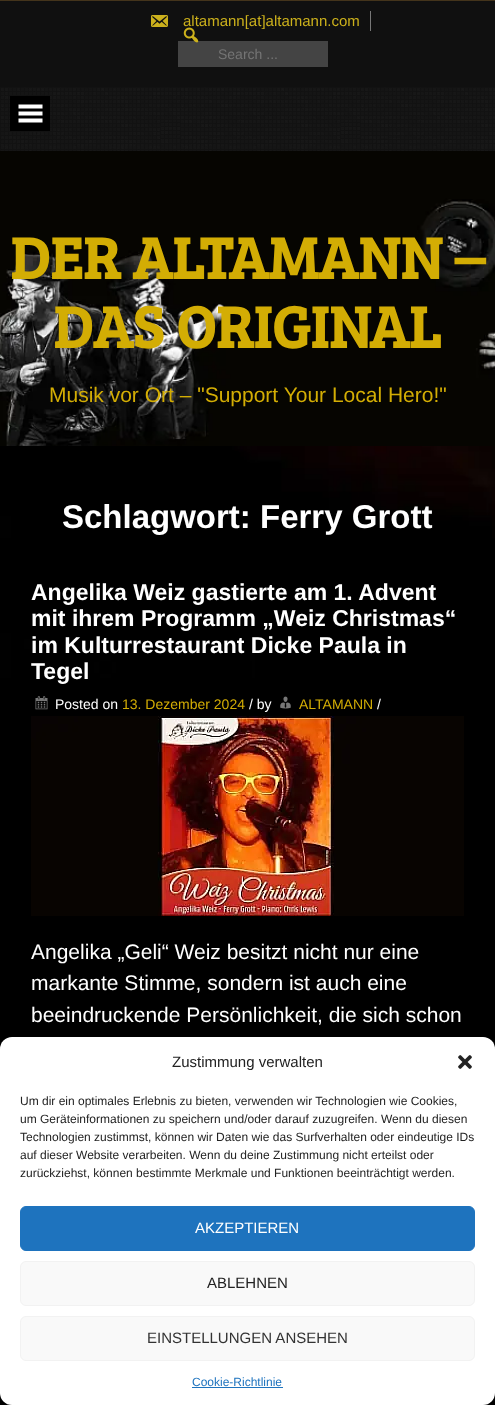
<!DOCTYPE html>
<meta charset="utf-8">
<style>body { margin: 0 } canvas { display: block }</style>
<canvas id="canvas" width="495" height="1405"></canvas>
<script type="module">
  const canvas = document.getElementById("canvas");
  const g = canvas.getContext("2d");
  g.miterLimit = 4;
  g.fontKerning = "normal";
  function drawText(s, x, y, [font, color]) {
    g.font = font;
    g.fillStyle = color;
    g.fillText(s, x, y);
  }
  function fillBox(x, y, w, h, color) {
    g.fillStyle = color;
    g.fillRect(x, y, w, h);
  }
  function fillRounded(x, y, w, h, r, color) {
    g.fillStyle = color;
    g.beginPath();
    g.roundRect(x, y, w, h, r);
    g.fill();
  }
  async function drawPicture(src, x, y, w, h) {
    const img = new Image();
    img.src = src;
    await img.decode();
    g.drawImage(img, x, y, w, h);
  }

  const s1 = ["15px Liberation Sans", "#CCB11C"];
  const s2 = ["14px Liberation Sans", "#757575"];
  const s3 = ["bold 60px Bree Serif", "#D3AD04"];
  const s4 = ["21px Liberation Sans", "#D3AD04"];
  const s5 = ["bold 33px Liberation Sans", "#FFFFFF"];
  const s6 = ["bold 23px Liberation Sans", "#FFFFFF"];
  const s7 = ["14px Liberation Sans", "#FFFFFF"];
  const s8 = ["14px Liberation Sans", "#D3AD04"];
  const s9 = ["21px Liberation Sans", "#FFFFFF"];
  const s10 = ["15px Liberation Sans", "#222222"];
  const s11 = ["12px Liberation Sans", "#222222"];
  const s12 = ["15px Liberation Sans", "#FFFFFF"];
  const s13 = ["15px Liberation Sans", "#333333"];
  const s14 = ["12px Liberation Sans", "#1E73BE"];

  fillBox(0, 0, 495, 1405, "#FFFFFF");
  await drawPicture("pic1.png", 0, 446, 495, 959);
  await drawPicture("pic2.png", 0, 146, 495, 5);
  fillBox(0, 0, 495, 1, "#44341B");
  fillBox(0, 1, 495, 86, "#101010");
  fillBox(370, 11, 1, 20, "#777777");
  await drawPicture("pic3.png", 151, 15, 17, 12);
  drawText("altamann[at]altamann.com", 183, 26, s1);
  fillBox(178, 41, 150, 26, "#444444");
  await drawPicture("pic4.png", 183, 27, 16, 16);
  drawText("Search ...", 218, 59, s2);
  await drawPicture("pic5.png", 0, 87, 495, 59);
  await drawPicture("pic6.png", 10, 96, 40, 35);
  await drawPicture("pic7.png", 0, 151, 495, 295);
  drawText("DER ALTAMANN –", 10, 279, s3);
  drawText("DAS ORIGINAL", 53, 348, s3);
  drawText("Musik vor Ort – \"Support Your Local Hero!\"", 49, 402, s4);
  drawText("Schlagwort: Ferry Grott", 62, 528, s5);
  fillBox(255, 653, 129, 491, "#000000");
  drawText("Angelika Weiz gastierte am 1. Advent", 31, 600, s6);
  drawText("mit ihrem Programm „Weiz Christmas“", 31, 626, s6);
  drawText("im Kulturrestaurant Dicke Paula in", 31, 653, s6);
  drawText("Tegel", 31, 679, s6);
  await drawPicture("pic8.png", 35, 696, 13, 14);
  drawText("Posted on", 55, 709, s7);
  drawText("13. Dezember 2024", 122, 709, s8);
  drawText("/ by", 249, 709, s7);
  await drawPicture("pic9.png", 280, 696, 11, 13);
  drawText("ALTAMANN", 299, 709, s8);
  drawText("/", 377, 709, s7);
  await drawPicture("pic10.png", 31, 716, 433, 200);
  drawText("Angelika „Geli“ Weiz besitzt nicht nur eine", 31, 959, s9);
  drawText("markante Stimme, sondern ist auch eine", 31, 990, s9);
  drawText("beeindruckende Persönlichkeit, die sich schon", 31, 1022, s9);
  fillRounded(0, 1037, 495, 368, 12, "#FFFFFF");
  drawText("Zustimmung verwalten", 172, 1067, s10);
  await drawPicture("pic11.png", 458, 1055, 14, 14);
  drawText("Um dir ein optimales Erlebnis zu bieten, verwenden wir Technologien wie Cookies,", 20, 1105, s11);
  drawText("um Geräteinformationen zu speichern und/oder darauf zuzugreifen. Wenn du diesen", 20, 1123, s11);
  drawText("Technologien zustimmst, können wir Daten wie das Surfverhalten oder eindeutige IDs", 20, 1141, s11);
  drawText("auf dieser Website verarbeiten. Wenn du deine Zustimmung nicht erteilst oder", 20, 1159, s11);
  drawText("zurückziehst, können bestimmte Merkmale und Funktionen beeinträchtigt werden.", 20, 1177, s11);
  g.fillStyle = "#1E73BE";
  g.beginPath();
  g.roundRect(20.5, 1206.5, 454, 44, 5.5);
  g.fill();
  g.strokeStyle = "#1E73BE";
  g.stroke();
  drawText("AKZEPTIEREN", 195, 1233, s12);
  g.fillStyle = "#F9F9F9";
  g.beginPath();
  g.roundRect(20.5, 1261.5, 454, 44, 5.5);
  g.fill();
  g.strokeStyle = "#F2F2F2";
  g.stroke();
  drawText("ABLEHNEN", 207, 1288, s10);
  g.fillStyle = "#F9F9F9";
  g.beginPath();
  g.roundRect(20.5, 1316.5, 454, 44, 5.5);
  g.fill();
  g.stroke();
  drawText("EINSTELLUNGEN ANSEHEN", 147, 1343, s13);
  drawText("Cookie-Richtlinie", 192, 1386, s14);
  fillBox(192, 1387, 91, 1, "#1E73BE");
</script>
